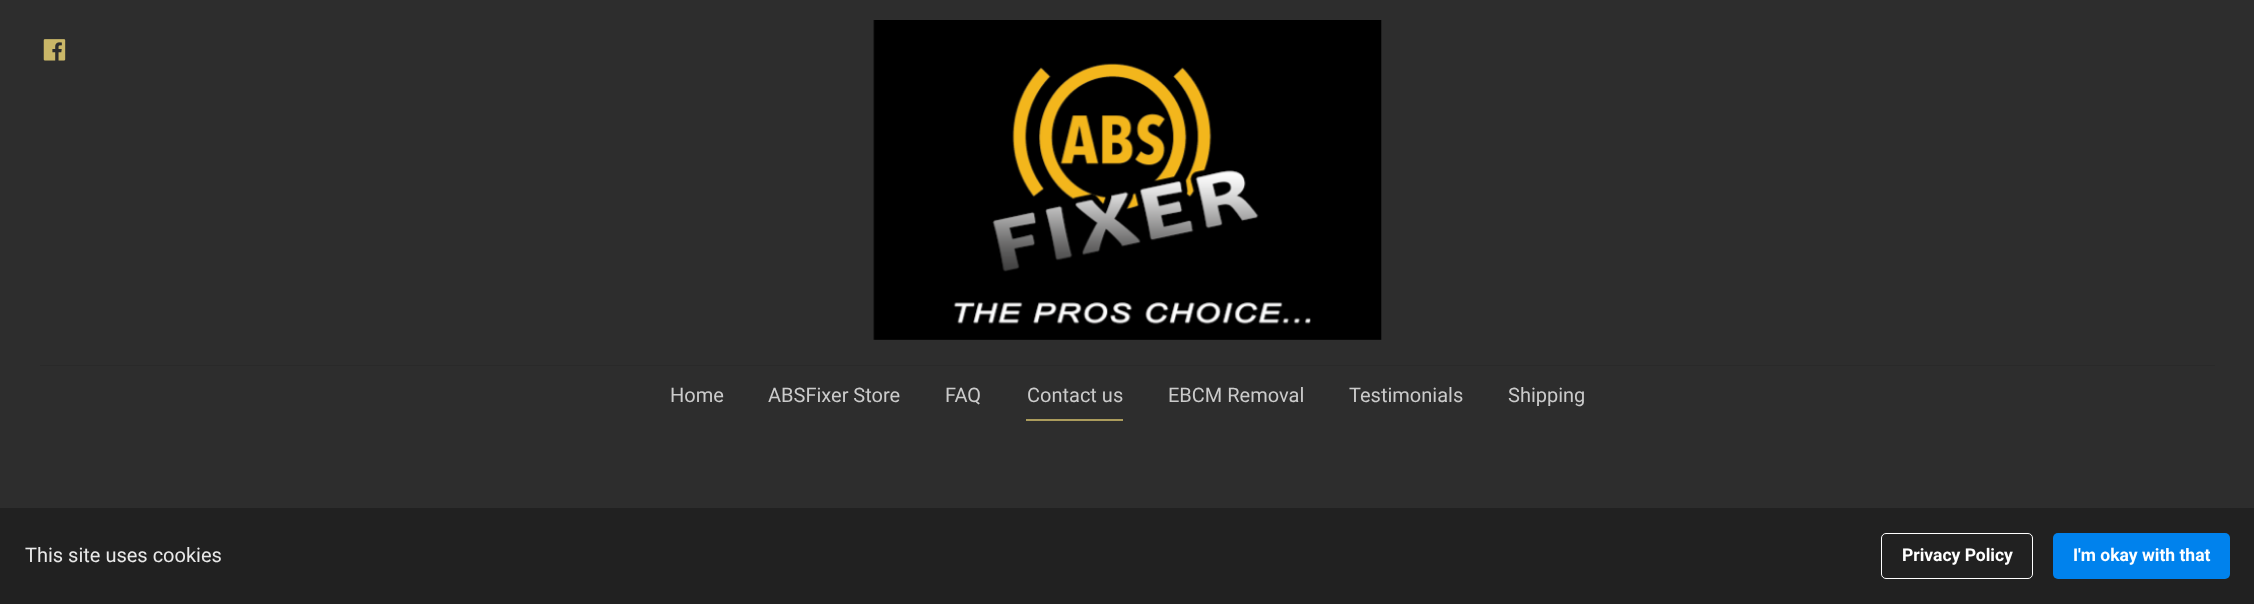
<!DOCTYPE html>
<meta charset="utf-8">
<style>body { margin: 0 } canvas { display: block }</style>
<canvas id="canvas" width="2254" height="604"></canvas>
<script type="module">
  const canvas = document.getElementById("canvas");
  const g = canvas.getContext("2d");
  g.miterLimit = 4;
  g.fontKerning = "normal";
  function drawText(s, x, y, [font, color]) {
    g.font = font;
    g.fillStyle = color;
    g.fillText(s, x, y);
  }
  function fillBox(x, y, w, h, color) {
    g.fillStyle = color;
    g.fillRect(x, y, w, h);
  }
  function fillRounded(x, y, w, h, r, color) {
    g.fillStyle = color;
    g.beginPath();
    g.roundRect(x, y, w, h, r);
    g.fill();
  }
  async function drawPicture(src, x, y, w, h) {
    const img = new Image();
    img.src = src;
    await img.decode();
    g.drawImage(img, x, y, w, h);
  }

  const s1 = ["20px Roboto", "#CBCBCB"];
  const s2 = ["20px Roboto", "#E9E9E9"];
  const s3 = ["bold 17.5px Roboto", "#FFFFFF"];

  fillBox(0, 0, 2254, 604, "#2D2D2D");
  await drawPicture("pic1.png", 873, 20, 509, 320);
  fillBox(40, 365, 2175, 1, "#292929");
  await drawPicture("pic2.png", 43, 39, 23, 22);
  drawText("Home", 670, 402, s1);
  drawText("ABSFixer Store", 768, 402, s1);
  drawText("FAQ", 945, 402, s1);
  drawText("Contact us", 1027, 402, s1);
  fillBox(1026, 419, 97, 2, "#AB9C5C");
  drawText("EBCM Removal", 1168, 402, s1);
  drawText("Testimonials", 1349, 402, s1);
  drawText("Shipping", 1508, 402, s1);
  fillBox(0, 508, 2254, 96, "#212121");
  drawText("This site uses cookies", 25, 562, s2);
  g.beginPath();
  g.roundRect(1881.5, 533.5, 151, 45, 4.5);
  g.strokeStyle = "#FFFFFF";
  g.stroke();
  drawText("Privacy Policy", 1902, 561, s3);
  fillRounded(2053, 533, 177, 46, 5, "#0082ED");
  drawText("I'm okay with that", 2073, 561, s3);
</script>
